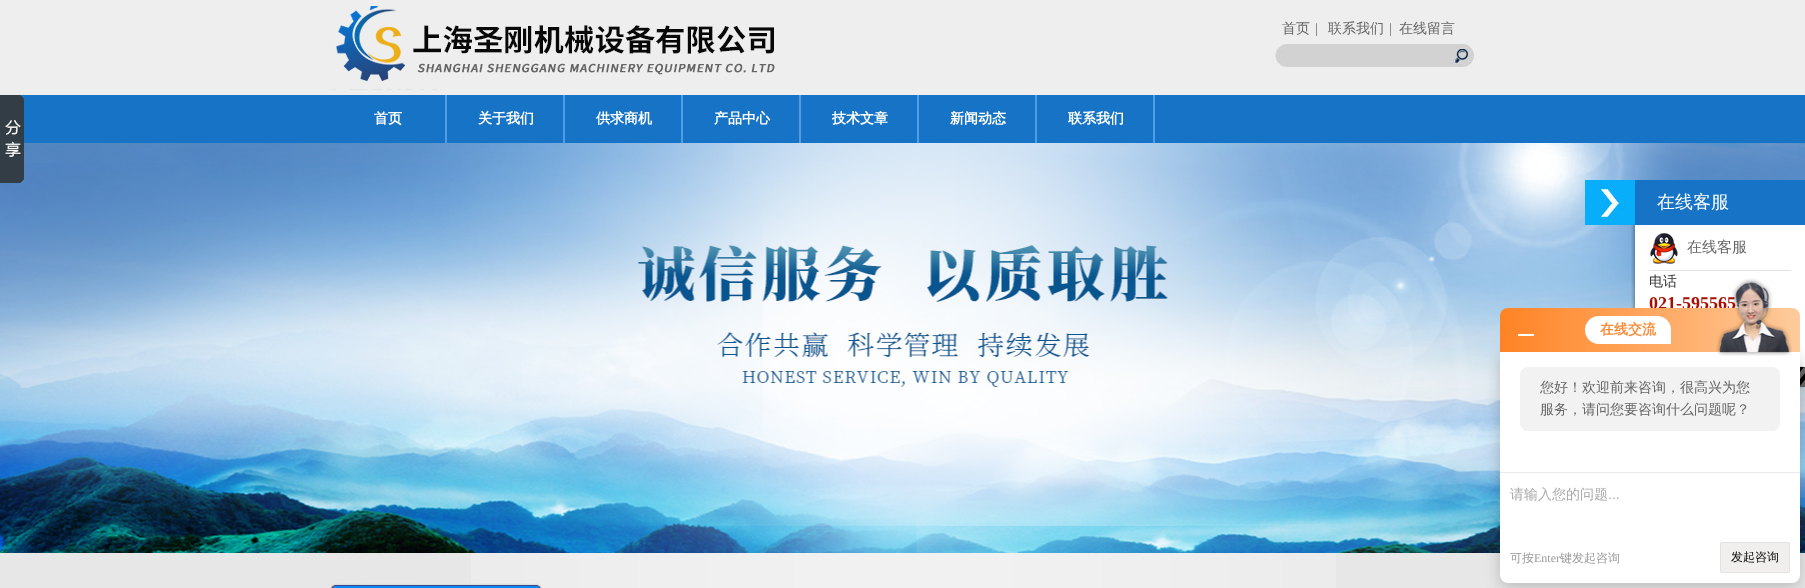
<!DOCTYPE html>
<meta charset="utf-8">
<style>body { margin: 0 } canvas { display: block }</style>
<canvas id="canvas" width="1805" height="588"></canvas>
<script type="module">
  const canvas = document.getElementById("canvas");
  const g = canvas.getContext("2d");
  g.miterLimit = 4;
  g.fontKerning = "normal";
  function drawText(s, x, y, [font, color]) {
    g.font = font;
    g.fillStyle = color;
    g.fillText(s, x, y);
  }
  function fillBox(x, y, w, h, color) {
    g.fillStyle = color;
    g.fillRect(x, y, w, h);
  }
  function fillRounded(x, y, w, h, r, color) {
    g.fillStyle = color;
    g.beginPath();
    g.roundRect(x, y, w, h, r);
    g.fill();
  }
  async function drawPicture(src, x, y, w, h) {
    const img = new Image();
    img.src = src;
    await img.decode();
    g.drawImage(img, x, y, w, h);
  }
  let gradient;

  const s1 = ["500 14px WenQuanYi Zen Hei", "#666666"];
  const s2 = ["14px Liberation Serif", "#666666"];
  const s3 = ["bold 14px WenQuanYi Zen Hei", "#FFFFFF"];
  const s4 = ["500 18px WenQuanYi Zen Hei", "#FFFFFF"];
  const s5 = ["500 15px WenQuanYi Zen Hei", "#666666"];
  const s6 = ["500 14px WenQuanYi Zen Hei", "#333333"];
  const s7 = ["bold 18px Liberation Serif", "#A80D01"];
  const s8 = ["bold 14px WenQuanYi Zen Hei", "#FB8B36"];
  const s9 = ["500 14px WenQuanYi Zen Hei", "#AAAAAA"];
  const s10 = ["14px Liberation Sans", "#AAAAAA"];
  const s11 = ["500 12px WenQuanYi Zen Hei", "#999999"];
  const s12 = ["12px Liberation Serif", "#999999"];
  const s13 = ["500 12px WenQuanYi Zen Hei", "#000000"];

  fillBox(0, 0, 1805, 588, "#EEEEEE");
  await drawPicture("pic1.png", 329, 6, 446, 84);
  drawText("首页", 1282, 33, s1);
  drawText("|", 1315, 33, s2);
  drawText("联系我们", 1328, 33, s1);
  drawText("|", 1389, 33, s2);
  drawText("在线留言", 1399, 33, s1);
  await drawPicture("pic2.png", 1275, 44, 200, 23);
  fillBox(21, 95, 1784, 48, "#1773C6");
  await drawPicture("pic4.png", 0, 143, 1805, 410);
  await drawPicture("pic3.png", 0, 95, 24, 88);
  fillBox(445, 95, 2, 48, "#4F9DE8");
  drawText("首页", 374, 123, s3);
  fillBox(563, 95, 2, 48, "#4F9DE8");
  drawText("关于我们", 478, 123, s3);
  fillBox(681, 95, 2, 48, "#4F9DE8");
  drawText("供求商机", 596, 123, s3);
  fillBox(799, 95, 2, 48, "#4F9DE8");
  drawText("产品中心", 714, 123, s3);
  fillBox(917, 95, 2, 48, "#4F9DE8");
  drawText("技术文章", 832, 123, s3);
  fillBox(1035, 95, 2, 48, "#4F9DE8");
  drawText("新闻动态", 950, 123, s3);
  fillBox(1153, 95, 2, 48, "#4F9DE8");
  drawText("联系我们", 1068, 123, s3);
  await drawPicture("pic5.png", 1585, 180, 50, 45);
  fillBox(1635, 225, 170, 142, "#FFFFFF");
  g.save();
  g.beginPath();
  g.rect(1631, 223, 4, 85);
  g.clip();
  g.fillStyle = "rgba(0, 0, 0, 0.25)";
  g.filter = "blur(1.5px)";
  g.beginPath();
  g.rect(1633, 225, 170, 142);
  g.fill();
  g.filter = "none";
  g.restore();
  fillBox(1635, 180, 170, 45, "#1773C6");
  drawText("在线客服", 1657, 208, s4);
  fillBox(1649, 270, 142, 1, "#E3E3E3");
  await drawPicture("pic6.png", 1650, 233, 29, 33);
  drawText("在线客服", 1687, 252, s5);
  drawText("电话", 1649, 286, s6);
  drawText("021-595565", 1649, 309, s7);
  g.fillStyle = "rgba(0, 0, 0, 0.25)";
  g.filter = "blur(1.5px)";
  g.beginPath();
  g.rect(1633, 367, 170, 20);
  g.fill();
  g.filter = "none";
  await drawPicture("pic7.png", 1800, 367, 5, 20);
  fillBox(0, 553, 1805, 35, "#E7E7E7");
  g.fillStyle = "rgba(0, 0, 0, 0.2)";
  g.filter = "blur(8px)";
  g.beginPath();
  g.roundRect(1500, 356, 300, 231, 8);
  g.fill();
  g.filter = "none";
  gradient = g.createLinearGradient(1500, 330, 1800, 330);
  gradient.addColorStop(0, "#FF8324");
  gradient.addColorStop(1, "#FECB9C");
  g.fillStyle = gradient;
  g.beginPath();
  g.roundRect(1500, 308, 300, 44, [8, 8, 0, 0]);
  g.fill();
  fillBox(1518, 334, 16, 2, "#FFFFFF");
  g.beginPath();
  g.roundRect(1585, 316, 86, 28, [14, 14, 0, 14]);
  g.fill();
  drawText("在线交流", 1600, 334, s8);
  g.fillStyle = "#FFFFFF";
  g.beginPath();
  g.roundRect(1500, 352, 300, 231, [0, 0, 8, 8]);
  g.fill();
  await drawPicture("pic8.png", 1716, 278, 76, 78);
  fillRounded(1520, 367, 260, 64, 8, "#F2F2F2");
  drawText("您好！欢迎前来咨询，很高兴为您", 1540, 392, s1);
  drawText("服务，请问您要咨询什么问题呢？", 1540, 414, s1);
  fillBox(1500, 472, 300, 1, "#EAEAEA");
  drawText("请输入您的问题", 1510, 499, s9);
  drawText("...", 1608, 499, s10);
  drawText("可按", 1510, 562, s11);
  drawText("Enter", 1534, 562, s12);
  drawText("键发起咨询", 1560, 562, s11);
  g.fillStyle = "#F0EFED";
  g.beginPath();
  g.roundRect(1720.5, 542.5, 69, 30, 1.5);
  g.fill();
  g.strokeStyle = "#E2E2E2";
  g.stroke();
  drawText("发起咨询", 1731, 561, s13);
  await drawPicture("pic9.png", 471, 553, 865, 35);
  await drawPicture("pic10.png", 329, 583, 214, 5);
</script>
